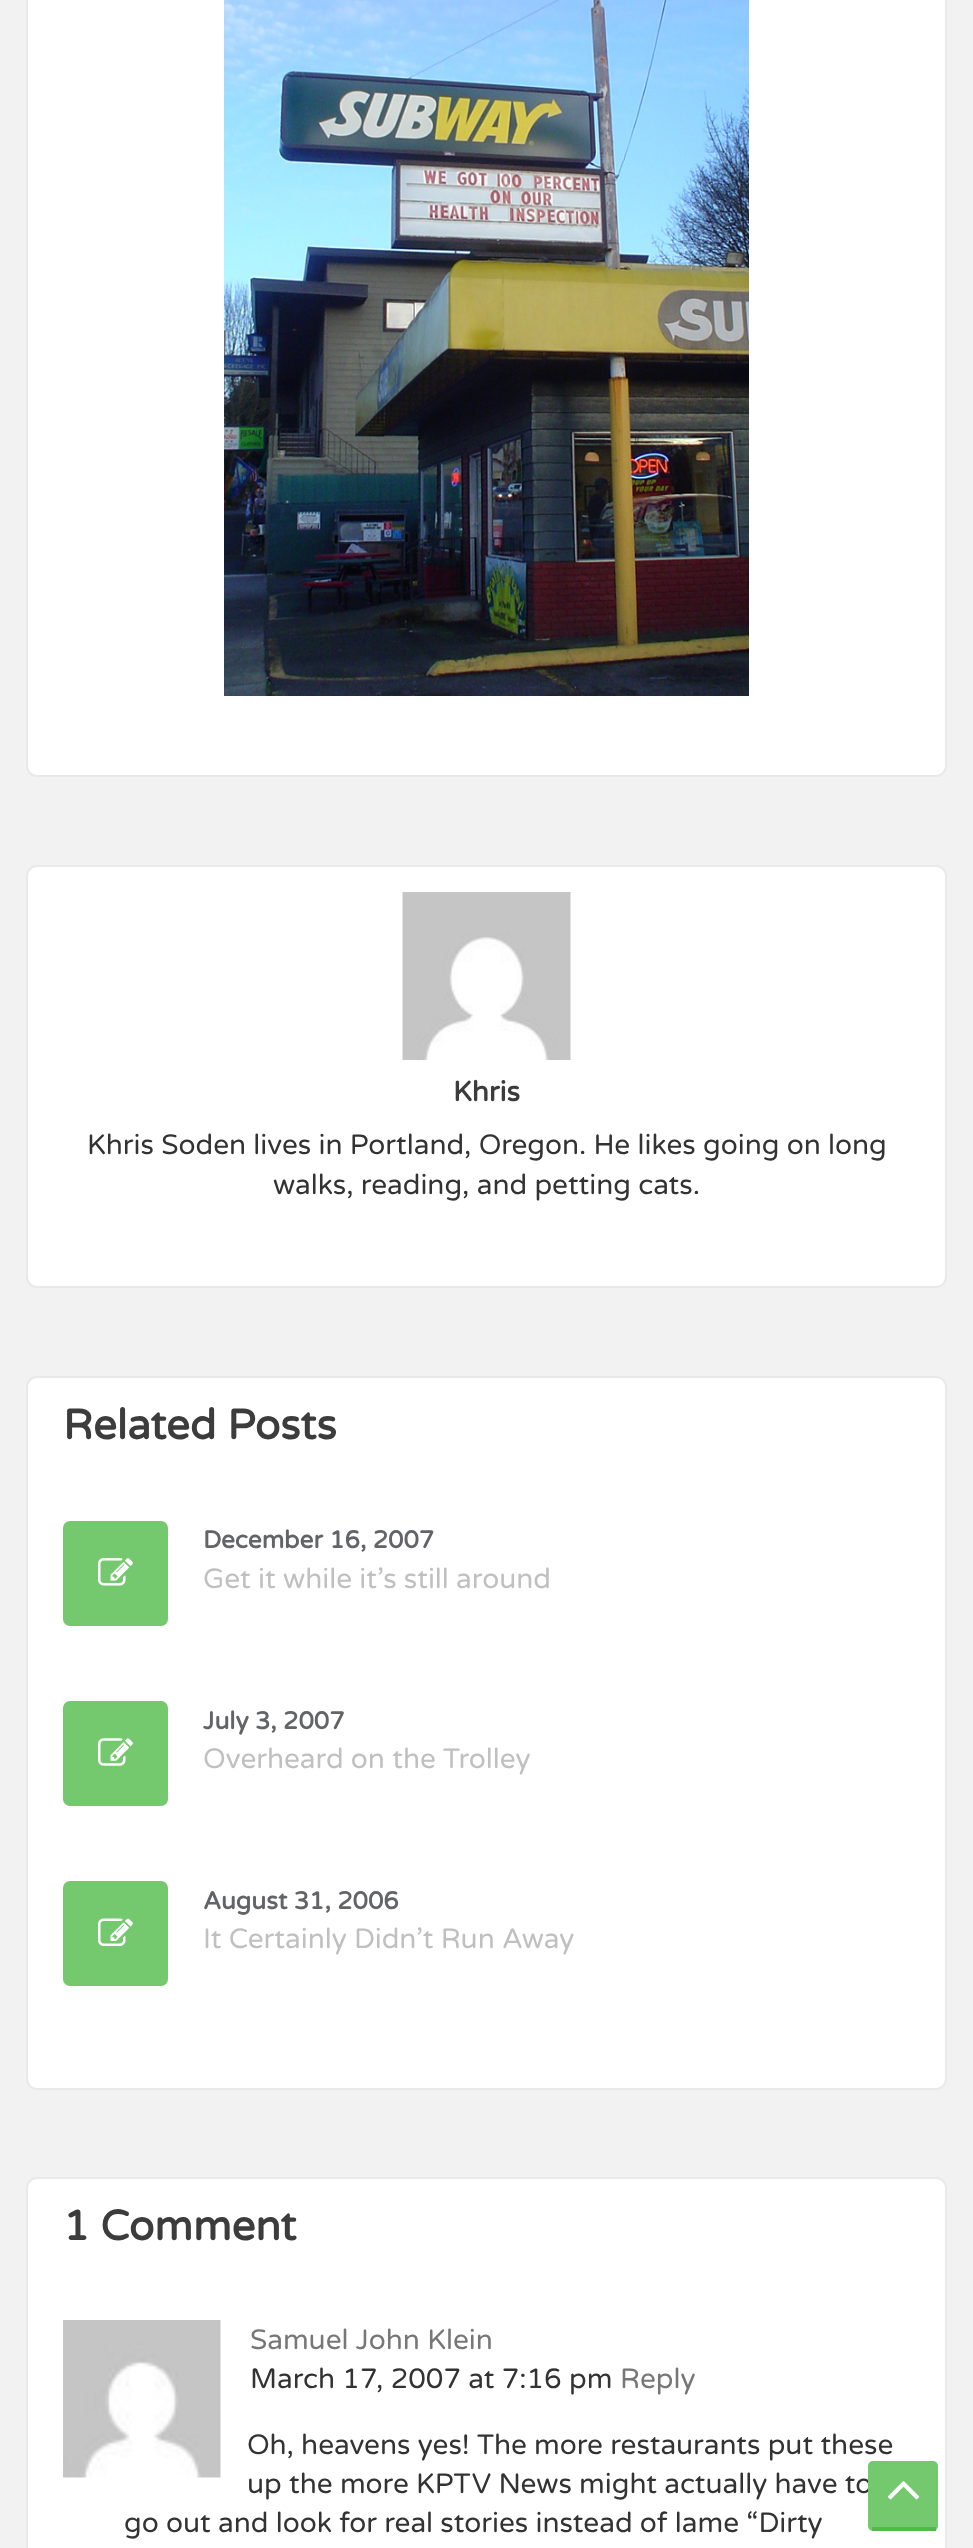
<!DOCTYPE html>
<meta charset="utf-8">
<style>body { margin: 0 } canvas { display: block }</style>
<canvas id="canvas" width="973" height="2548"></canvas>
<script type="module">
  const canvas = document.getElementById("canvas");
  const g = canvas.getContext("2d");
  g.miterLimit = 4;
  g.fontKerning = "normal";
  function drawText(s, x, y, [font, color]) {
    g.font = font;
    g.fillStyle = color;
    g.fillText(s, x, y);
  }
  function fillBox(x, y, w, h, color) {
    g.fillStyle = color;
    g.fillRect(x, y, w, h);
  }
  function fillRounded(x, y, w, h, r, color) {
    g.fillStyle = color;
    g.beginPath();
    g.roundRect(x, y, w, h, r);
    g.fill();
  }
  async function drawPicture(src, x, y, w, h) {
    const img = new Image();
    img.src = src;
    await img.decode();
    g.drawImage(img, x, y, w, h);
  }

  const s1 = ["bold 28px Varela Round", "#3C3C3C"];
  const s2 = ["28px Varela Round", "#333333"];
  const s3 = ["bold 42px Varela Round", "#3C3C3C"];
  const s4 = ["bold 24.5px Varela Round", "#636467"];
  const s5 = ["28px Varela Round", "#C1C0C0"];
  const s6 = ["28px Varela Round", "#777777"];

  fillBox(0, 0, 973, 2548, "#F2F2F2");
  g.fillStyle = "#FFFFFF";
  g.beginPath();
  g.roundRect(27, -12, 919, 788, 10);
  g.fill();
  g.strokeStyle = "#E9E9E9";
  g.lineWidth = 2;
  g.stroke();
  await drawPicture("pic1.png", 224, 0, 525, 696);
  g.beginPath();
  g.roundRect(27, 866, 919, 421, 10);
  g.fill();
  g.stroke();
  await drawPicture("pic2.png", 402, 892, 169, 168);
  drawText("Khris", 453, 1101, s1);
  drawText("Khris Soden lives in Portland, Oregon. He likes going on long", 87, 1154, s2);
  drawText("walks, reading, and petting cats.", 273, 1194, s2);
  g.fillStyle = "#FFFFFF";
  g.beginPath();
  g.roundRect(27, 1377, 919, 712, 10);
  g.fill();
  g.stroke();
  drawText("Related Posts", 63, 1439, s3);
  fillRounded(63, 1521, 105, 105, 7, "#74C86E");
  await drawPicture("pic3.png", 98, 1558, 35, 28);
  drawText("December 16, 2007", 203, 1548, s4);
  drawText("Get it while it’s still around", 203, 1588, s5);
  fillRounded(63, 1701, 105, 105, 7, "#74C86E");
  await drawPicture("pic4.png", 98, 1738, 35, 28);
  drawText("July 3, 2007", 203, 1729, s4);
  drawText("Overheard on the Trolley", 203, 1768, s5);
  fillRounded(63, 1881, 105, 105, 7, "#74C86E");
  await drawPicture("pic5.png", 98, 1918, 35, 28);
  drawText("August 31, 2006", 203, 1909, s4);
  drawText("It Certainly Didn’t Run Away", 203, 1948, s5);
  g.fillStyle = "#FFFFFF";
  g.beginPath();
  g.roundRect(27, 2178, 919, 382, 10);
  g.fill();
  g.stroke();
  drawText("1 Comment", 63, 2240, s3);
  await drawPicture("pic6.png", 63, 2320, 158, 158);
  drawText("Samuel John Klein", 250, 2349, s6);
  drawText("March 17, 2007 at 7:16 pm", 250, 2388, s2);
  drawText("Reply", 620, 2388, s6);
  drawText("Oh, heavens yes! The more restaurants put these", 247, 2454, s2);
  drawText("up the more KPTV News might actually have to", 247, 2493, s2);
  drawText("go out and look for real stories instead of lame “Dirty", 124, 2532, s2);
  fillRounded(868, 2461, 70, 70, 5, "#74C86E");
  fillBox(872, 2527, 64, 4, "#51BA49");
  await drawPicture("pic7.png", 887, 2481, 33, 19);
</script>
